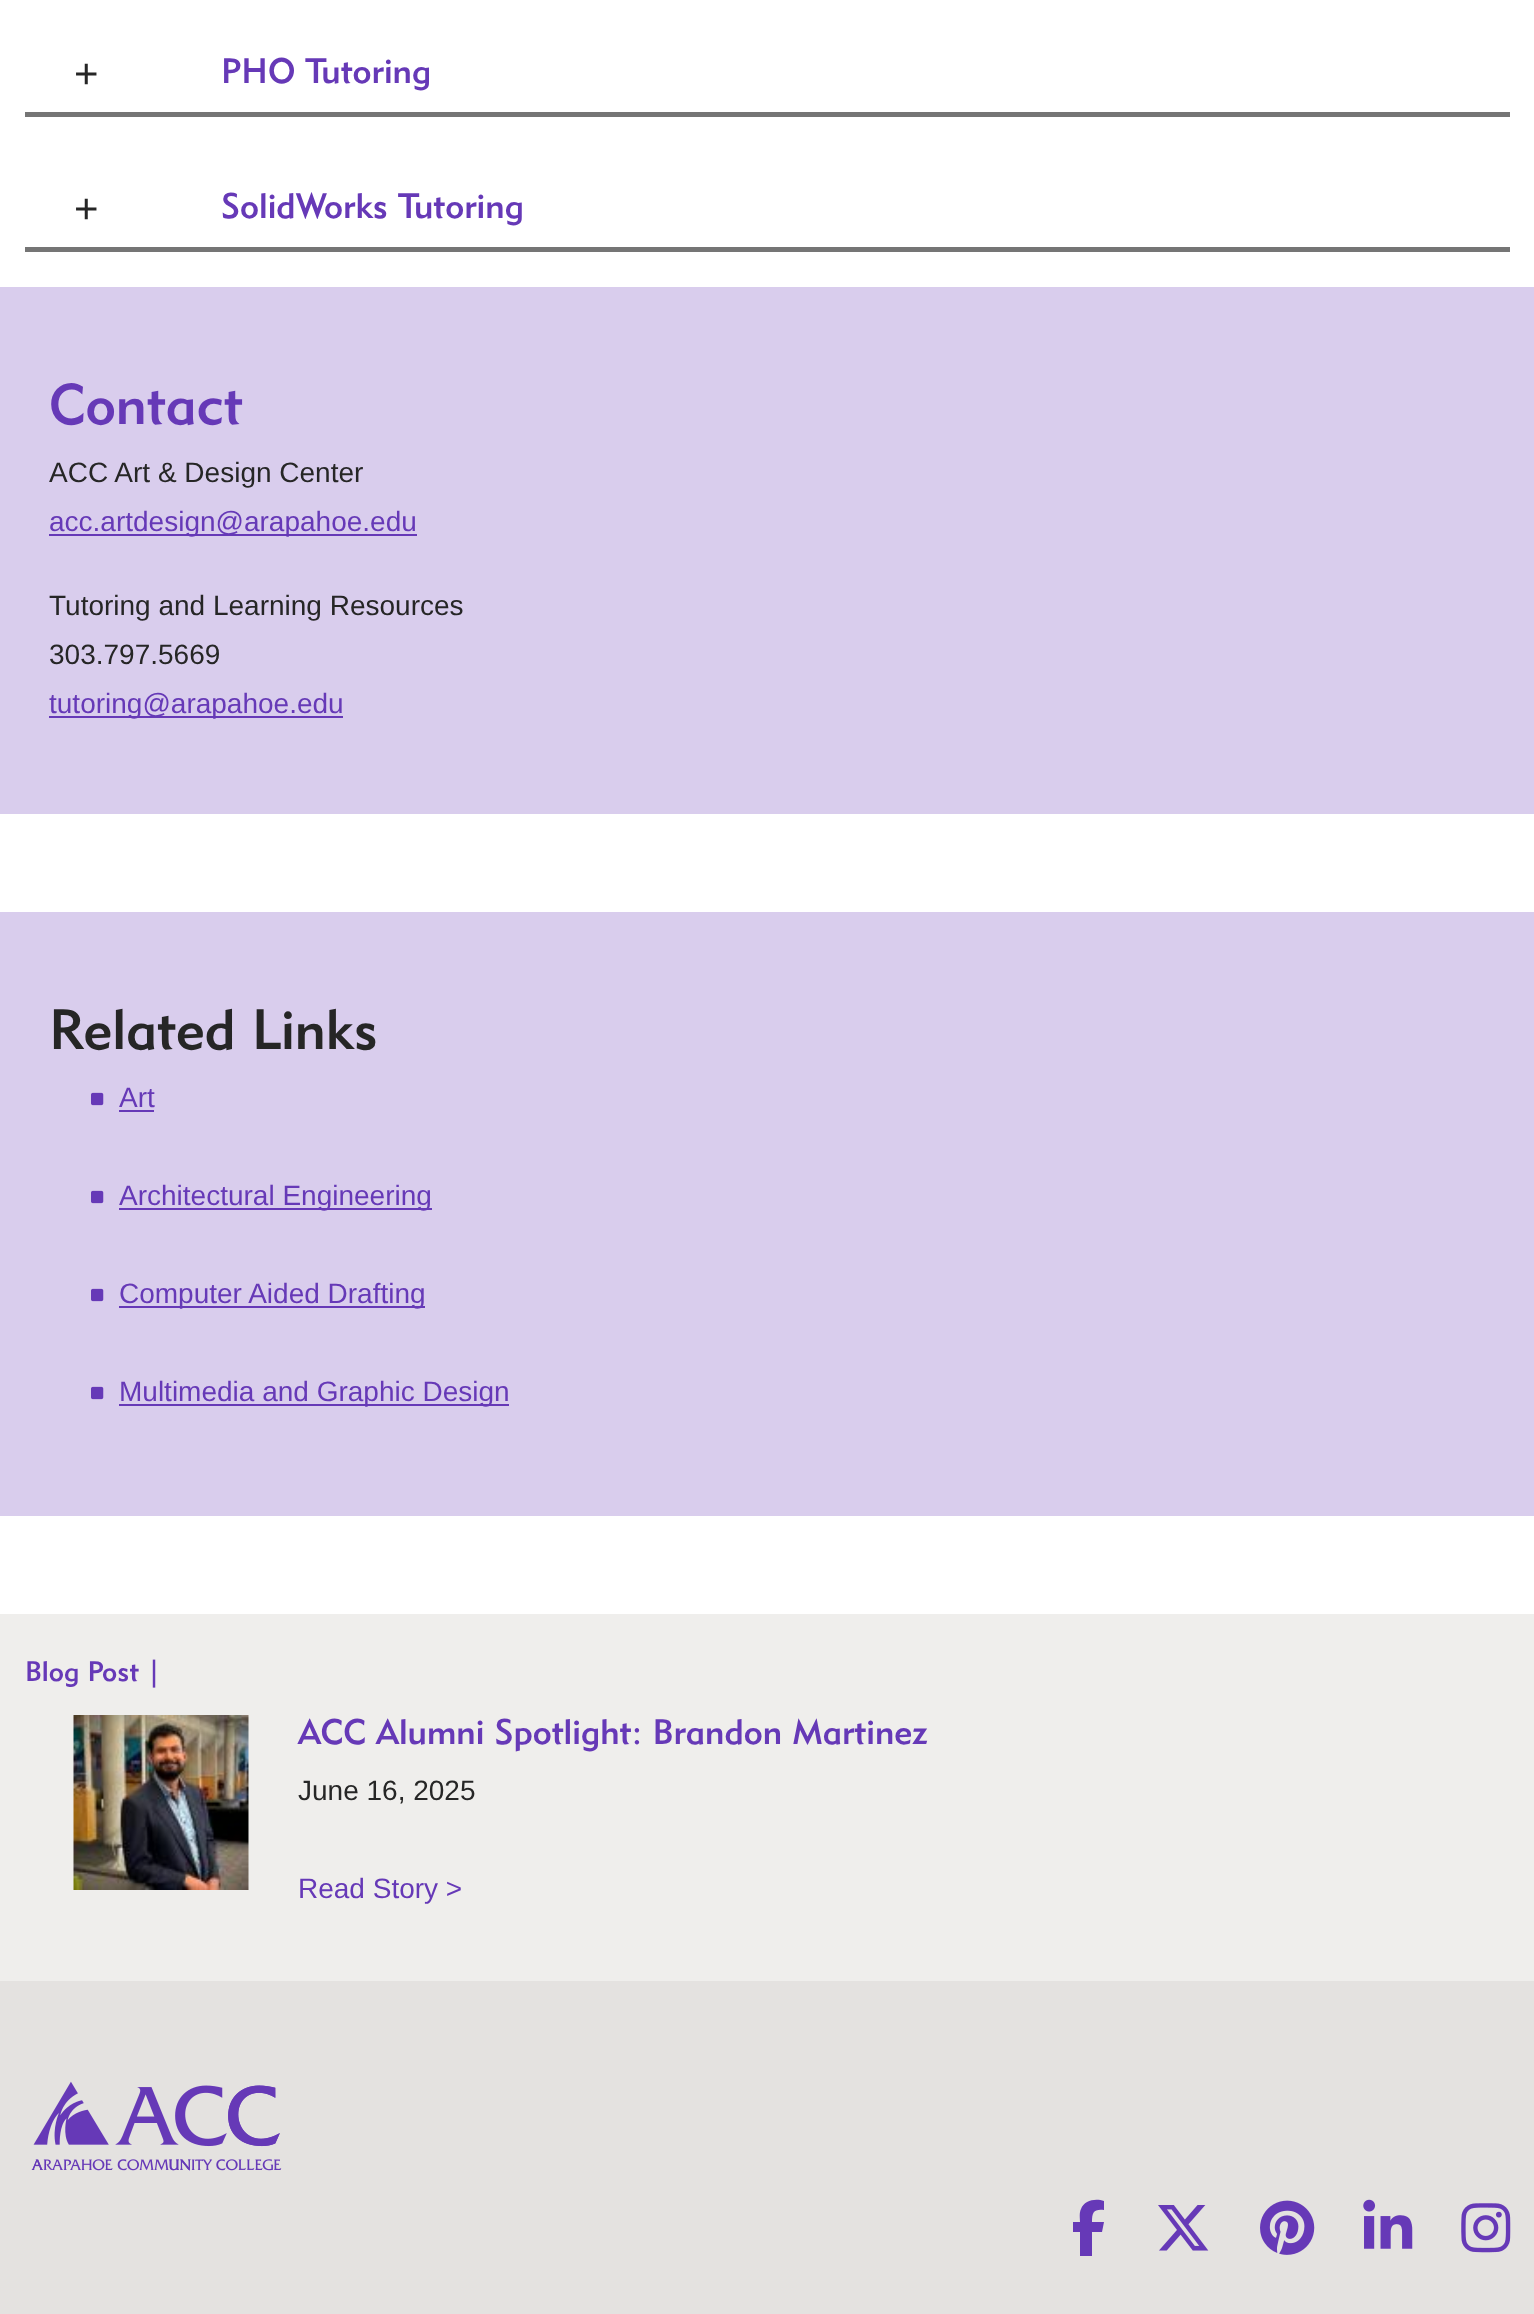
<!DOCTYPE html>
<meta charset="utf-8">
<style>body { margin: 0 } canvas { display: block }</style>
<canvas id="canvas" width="1534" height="2314"></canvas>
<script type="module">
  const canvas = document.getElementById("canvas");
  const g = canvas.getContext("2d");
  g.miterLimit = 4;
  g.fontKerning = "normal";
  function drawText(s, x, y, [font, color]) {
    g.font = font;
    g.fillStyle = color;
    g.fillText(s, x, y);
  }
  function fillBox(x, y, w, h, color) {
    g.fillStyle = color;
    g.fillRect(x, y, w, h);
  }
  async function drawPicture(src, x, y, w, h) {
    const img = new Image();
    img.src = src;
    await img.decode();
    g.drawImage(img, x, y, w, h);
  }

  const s1 = ["42px Liberation Sans", "#262626"];
  const s2 = ["500 35px 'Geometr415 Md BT'", "#6639B7"];
  const s3 = ["500 56px 'Geometr415 Md BT'", "#6639B7"];
  const s4 = ["28px Liberation Sans", "#262626"];
  const s5 = ["28px Liberation Sans", "#6639B7"];
  const s6 = ["500 56px 'Geometr415 Md BT'", "#262626"];
  const s7 = ["500 28px 'Geometr415 Md BT'", "#6639B7"];

  fillBox(0, 0, 1534, 2314, "#FFFFFF");
  fillBox(25, 112, 1485, 5, "#757575");
  drawText("+", 74, 88, s1);
  drawText("PHO Tutoring", 221, 83, s2);
  fillBox(25, 247, 1485, 5, "#757575");
  drawText("+", 74, 223, s1);
  drawText("SolidWorks Tutoring", 221, 218, s2);
  fillBox(0, 287, 1534, 527, "#D9CDED");
  drawText("Contact", 49, 424, s3);
  drawText("ACC Art & Design Center", 49, 482, s4);
  fillBox(49, 534, 368, 2, "#6639B7");
  drawText("acc.artdesign@arapahoe.edu", 49, 531, s5);
  drawText("Tutoring and Learning Resources", 49, 615, s4);
  drawText("303.797.5669", 49, 664, s4);
  fillBox(49, 716, 294, 2, "#6639B7");
  drawText("tutoring@arapahoe.edu", 49, 713, s5);
  fillBox(0, 912, 1534, 604, "#D9CDED");
  drawText("Related Links", 49, 1049, s6);
  await drawPicture("pic1.png", 91, 1092, 13, 14);
  drawText("Art", 119, 1107, s5);
  fillBox(119, 1110, 35, 2, "#6639B7");
  await drawPicture("pic1.png", 91, 1190, 13, 14);
  fillBox(119, 1208, 313, 2, "#6639B7");
  drawText("Architectural Engineering", 119, 1205, s5);
  await drawPicture("pic1.png", 91, 1288, 13, 14);
  fillBox(119, 1306, 306, 2, "#6639B7");
  drawText("Computer Aided Drafting", 119, 1303, s5);
  await drawPicture("pic1.png", 91, 1386, 13, 14);
  fillBox(119, 1404, 390, 2, "#6639B7");
  drawText("Multimedia and Graphic Design", 119, 1401, s5);
  fillBox(0, 1614, 1534, 367, "#EFEEEC");
  drawText("Blog Post |", 25, 1681, s7);
  await drawPicture("pic2.png", 73, 1715, 176, 175);
  drawText("ACC Alumni Spotlight: Brandon Martinez", 298, 1744, s2);
  drawText("June 16, 2025", 298, 1800, s4);
  drawText("Read Story >", 298, 1898, s5);
  fillBox(0, 1981, 1534, 333, "#E4E2E0");
  await drawPicture("pic3.png", 31, 2081, 251, 90);
  g.fillStyle = "#6639B7";
  g.beginPath();
  g.moveTo(1080, 2232);
  g.lineTo(1080, 2256);
  g.lineTo(1080, 2232);
  g.lineTo(1080, 2256);
  g.lineTo(1092, 2256);
  g.lineTo(1092, 2232);
  g.lineTo(1102, 2232);
  g.lineTo(1104, 2222);
  g.lineTo(1092, 2222);
  g.bezierCurveTo(1092, 2212, 1094, 2209, 1104, 2210);
  g.lineTo(1104, 2201);
  g.bezierCurveTo(1096, 2198, 1084, 2200, 1081, 2209);
  g.bezierCurveTo(1079, 2213, 1080, 2218, 1080, 2222);
  g.lineTo(1073, 2222);
  g.lineTo(1073, 2232);
  g.closePath();
  g.fill();
  await drawPicture("pic4.png", 1158, 2205, 51, 46);
  await drawPicture("pic5.png", 1260, 2200, 55, 55);
  await drawPicture("pic6.png", 1363, 2199, 50, 50);
  await drawPicture("pic7.png", 1461, 2203, 50, 50);
</script>
